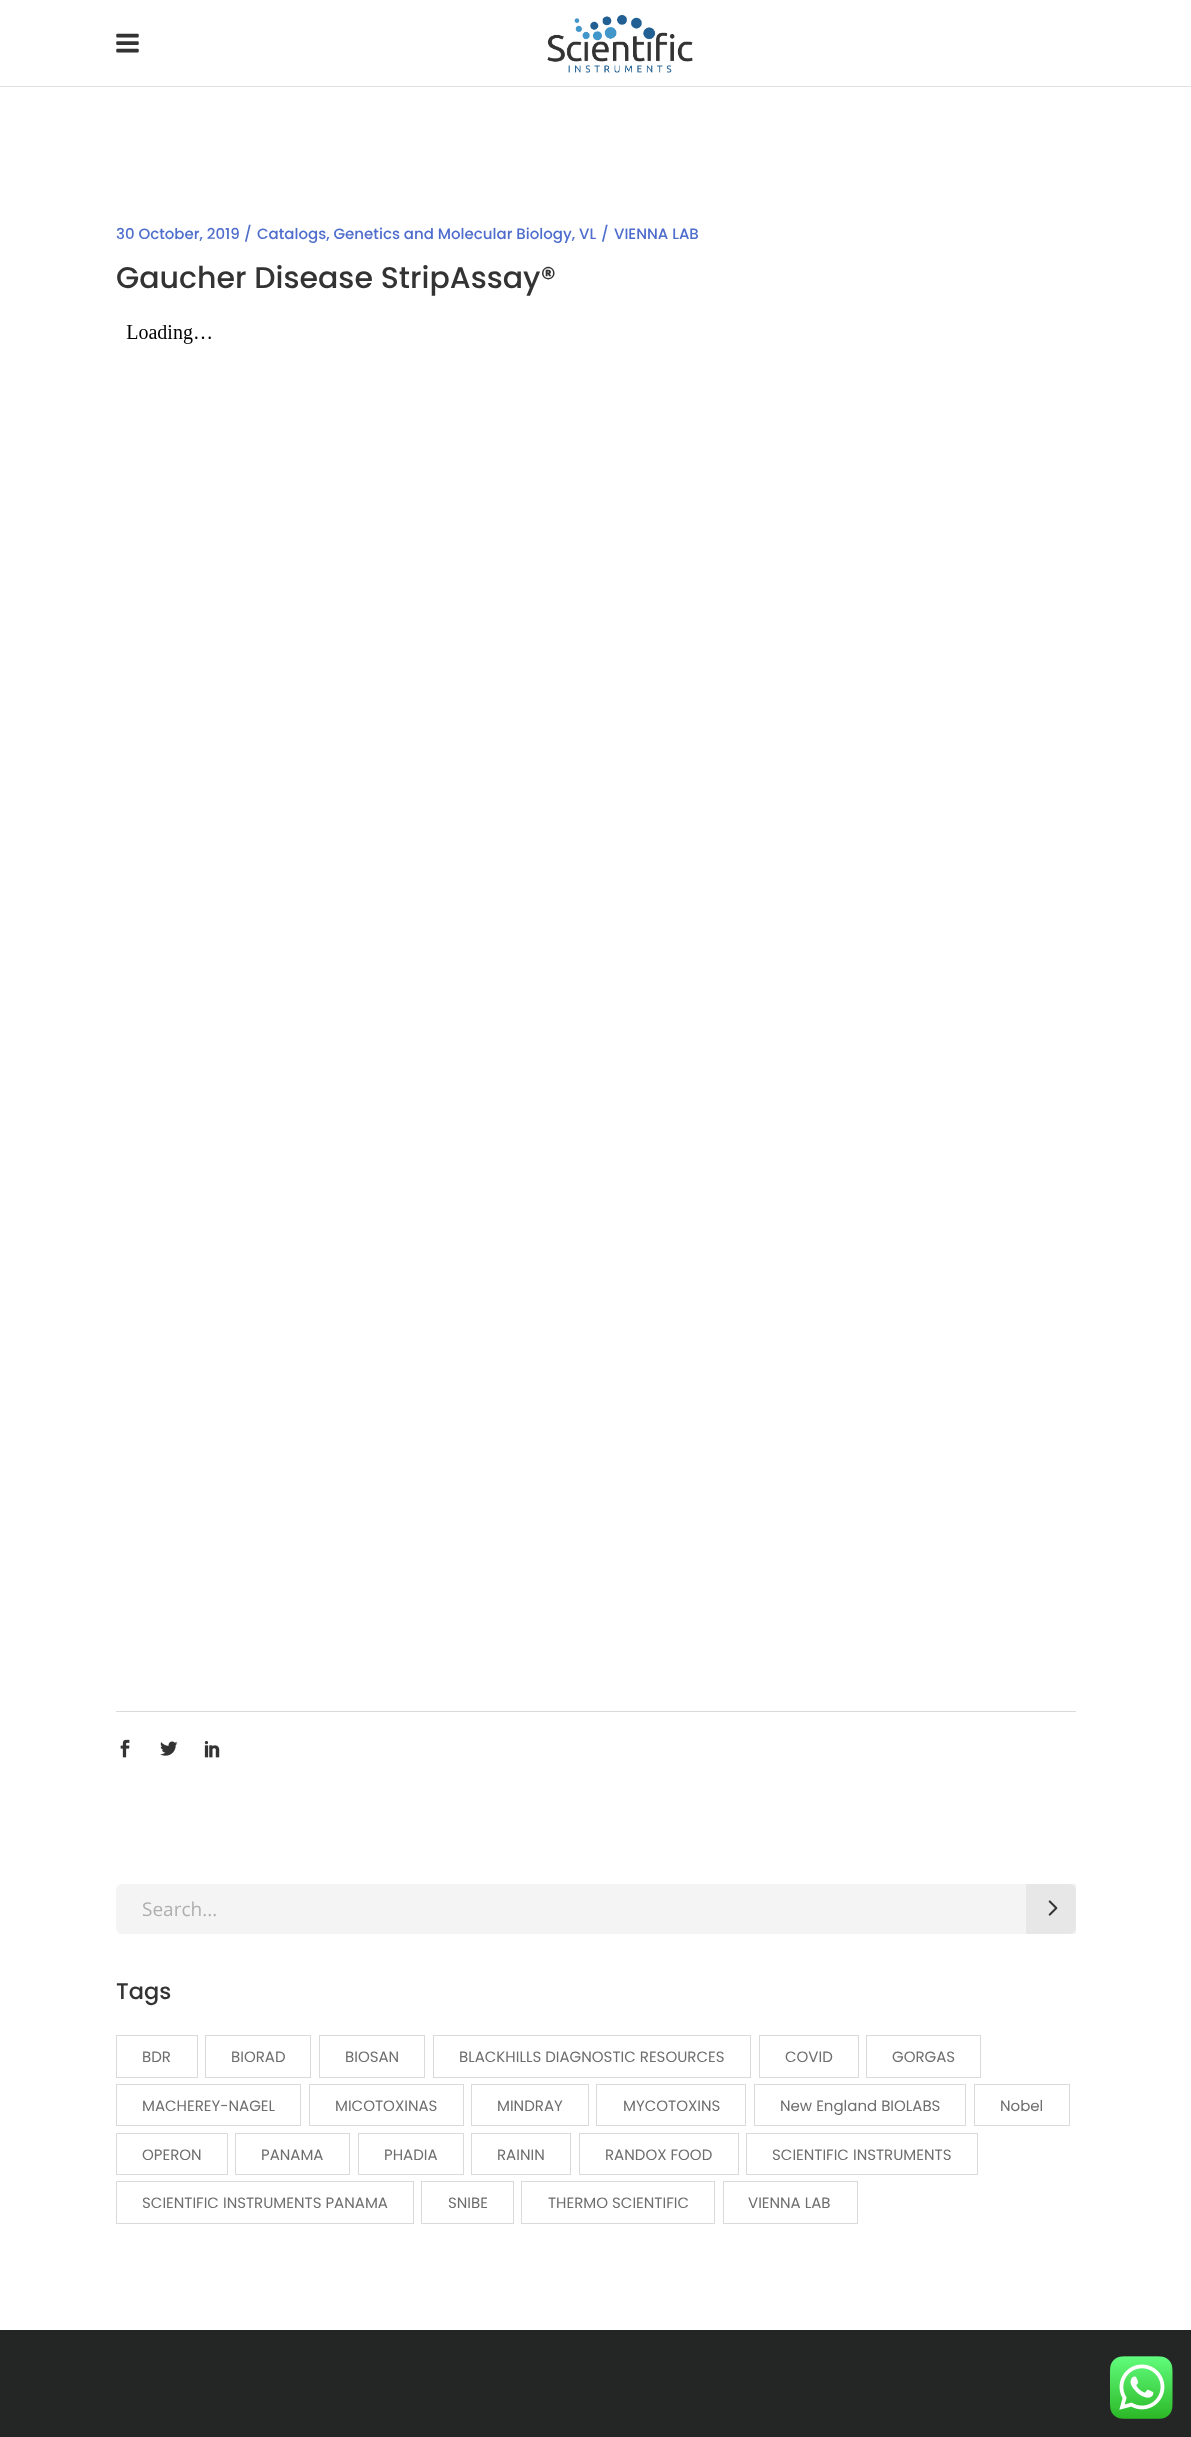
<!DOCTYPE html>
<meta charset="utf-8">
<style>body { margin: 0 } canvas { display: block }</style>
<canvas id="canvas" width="1191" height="2437"></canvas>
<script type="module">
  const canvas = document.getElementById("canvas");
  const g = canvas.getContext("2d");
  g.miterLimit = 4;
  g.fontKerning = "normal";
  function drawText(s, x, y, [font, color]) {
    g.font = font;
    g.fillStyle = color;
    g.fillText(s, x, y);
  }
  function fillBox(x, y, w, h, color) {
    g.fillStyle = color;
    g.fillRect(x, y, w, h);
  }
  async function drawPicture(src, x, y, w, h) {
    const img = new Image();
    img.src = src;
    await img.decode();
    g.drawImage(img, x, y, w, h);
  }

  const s1 = ["500 15px Poppins", "#4E6DCC"];
  const s2 = ["500 30px Poppins", "#333333"];
  const s3 = ["19px Open Sans", "#AFAFAF"];
  const s4 = ["500 22.5px Poppins", "#333333"];
  const s5 = ["15px Poppins", "#6E6E6E"];

  fillBox(0, 0, 1191, 2437, "#FFFFFF");
  fillBox(0, 86, 1191, 1, "#E1E1E1");
  await drawPicture("pic1.png", 116, 33, 23, 20);
  await drawPicture("pic2.png", 547, 15, 146, 58);
  drawText("30 October, 2019", 116, 239, s1);
  drawText("/", 244, 239, s1);
  drawText("Catalogs, Genetics and Molecular Biology, VL", 257, 239, s1);
  drawText("/", 601, 239, s1);
  drawText("VIENNA LAB", 614, 239, s1);
  drawText("Gaucher Disease StripAssay®", 116, 288, s2);
  await drawPicture("pic3.png", 126, 325, 85, 19);
  fillBox(116, 1711, 960, 1, "#DADADA");
  await drawPicture("pic4.png", 120, 1739, 10, 19);
  await drawPicture("pic5.png", 160, 1741, 18, 15);
  await drawPicture("pic6.png", 204, 1741, 16, 17);
  g.fillStyle = "#F4F4F4";
  g.beginPath();
  g.roundRect(116, 1884, 960, 50, [6, 0, 0, 6]);
  g.fill();
  drawText("Search...", 142, 1916, s3);
  g.fillStyle = "#E7E7E7";
  g.beginPath();
  g.roundRect(1026, 1884, 50, 50, [0, 6, 6, 0]);
  g.fill();
  await drawPicture("pic7.png", 1048, 1900, 10, 16);
  drawText("Tags", 116, 1999, s4);
  g.strokeStyle = "#DADADA";
  g.strokeRect(116.5, 2035.5, 81, 42);
  drawText("BDR", 142, 2062, s5);
  g.strokeRect(205.5, 2035.5, 105, 42);
  drawText("BIORAD", 231, 2062, s5);
  g.strokeRect(319.5, 2035.5, 105, 42);
  drawText("BIOSAN", 345, 2062, s5);
  g.strokeRect(433.5, 2035.5, 317, 42);
  drawText("BLACKHILLS DIAGNOSTIC RESOURCES", 459, 2062, s5);
  g.strokeRect(759.5, 2035.5, 99, 42);
  drawText("COVID", 785, 2062, s5);
  g.strokeRect(866.5, 2035.5, 114, 42);
  drawText("GORGAS", 892, 2062, s5);
  g.strokeRect(116.5, 2084.5, 184, 41);
  drawText("MACHEREY-NAGEL", 142, 2111, s5);
  g.strokeRect(309.5, 2084.5, 154, 41);
  drawText("MICOTOXINAS", 335, 2111, s5);
  g.strokeRect(471.5, 2084.5, 117, 41);
  drawText("MINDRAY", 497, 2111, s5);
  g.strokeRect(596.5, 2084.5, 149, 41);
  drawText("MYCOTOXINS", 623, 2111, s5);
  g.strokeRect(754.5, 2084.5, 211, 41);
  drawText("New England BIOLABS", 780, 2111, s5);
  g.strokeRect(974.5, 2084.5, 95, 41);
  drawText("Nobel", 1000, 2111, s5);
  g.strokeRect(116.5, 2133.5, 111, 41);
  drawText("OPERON", 142, 2160, s5);
  g.strokeRect(235.5, 2133.5, 114, 41);
  drawText("PANAMA", 261, 2160, s5);
  g.strokeRect(358.5, 2133.5, 105, 41);
  drawText("PHADIA", 384, 2160, s5);
  g.strokeRect(471.5, 2133.5, 99, 41);
  drawText("RAININ", 497, 2160, s5);
  g.strokeRect(579.5, 2133.5, 159, 41);
  drawText("RANDOX FOOD", 605, 2160, s5);
  g.strokeRect(746.5, 2133.5, 231, 41);
  drawText("SCIENTIFIC INSTRUMENTS", 772, 2160, s5);
  g.strokeRect(116.5, 2181.5, 297, 42);
  drawText("SCIENTIFIC INSTRUMENTS PANAMA", 142, 2208, s5);
  g.strokeRect(421.5, 2181.5, 92, 42);
  drawText("SNIBE", 448, 2208, s5);
  g.strokeRect(521.5, 2181.5, 193, 42);
  drawText("THERMO SCIENTIFIC", 548, 2208, s5);
  g.strokeRect(723.5, 2181.5, 134, 42);
  drawText("VIENNA LAB", 748, 2208, s5);
  fillBox(0, 2330, 1191, 107, "#242626");
  await drawPicture("pic8.png", 1110, 2356, 63, 63);
</script>
